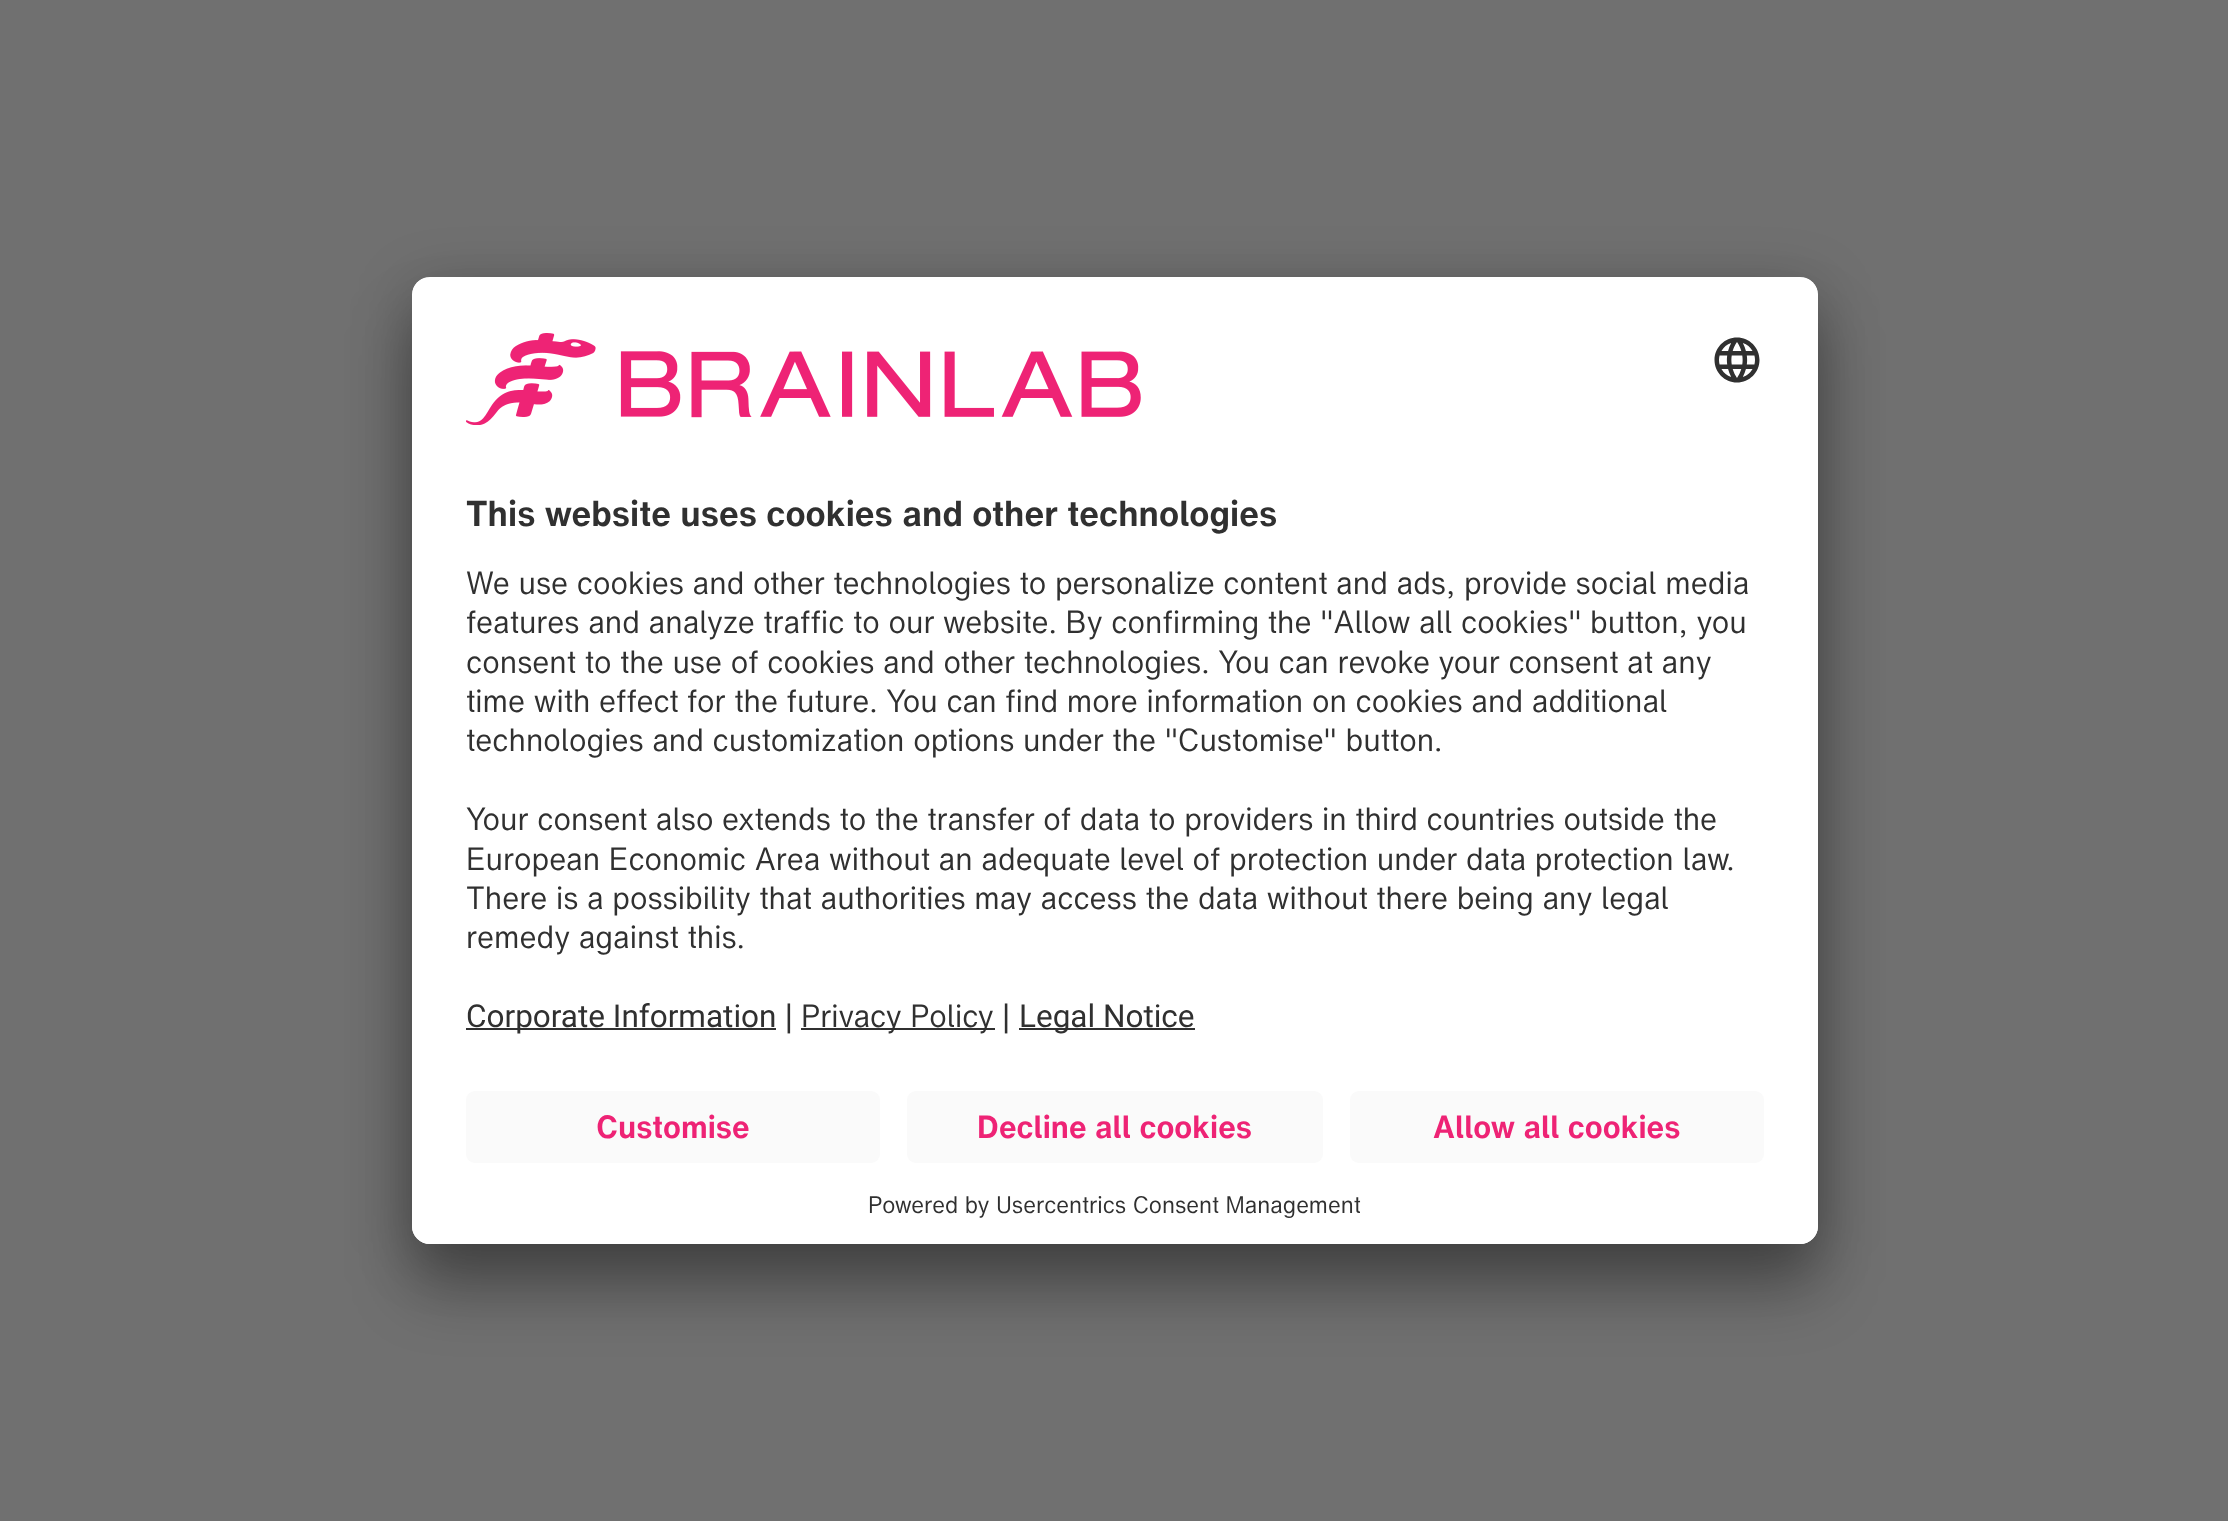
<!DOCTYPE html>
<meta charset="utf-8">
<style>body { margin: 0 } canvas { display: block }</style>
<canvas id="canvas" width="2228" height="1521"></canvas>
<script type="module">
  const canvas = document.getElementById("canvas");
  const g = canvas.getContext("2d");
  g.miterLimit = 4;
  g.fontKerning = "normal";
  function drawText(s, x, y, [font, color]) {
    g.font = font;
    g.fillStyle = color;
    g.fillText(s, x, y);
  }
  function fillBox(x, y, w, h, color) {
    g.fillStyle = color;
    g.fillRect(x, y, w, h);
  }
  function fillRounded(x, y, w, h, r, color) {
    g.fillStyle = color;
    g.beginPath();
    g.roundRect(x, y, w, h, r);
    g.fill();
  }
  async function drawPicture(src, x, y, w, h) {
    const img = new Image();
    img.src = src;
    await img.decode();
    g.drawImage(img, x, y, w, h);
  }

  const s1 = ["bold 35.4px 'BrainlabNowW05'", "#303030"];
  const s2 = ["31.5px 'BrainlabNowW05'", "#303030"];
  const s3 = ["31.5px Roboto", "#303030"];
  const s4 = ["bold 31.5px 'BrainlabNowW05'", "#EE2375"];
  const s5 = ["23.6px 'BrainlabNowW05'", "#303030"];

  fillBox(0, 0, 2228, 1521, "#707070");
  g.fillStyle = "rgba(0, 0, 0, 0.3)";
  g.filter = "blur(31.5px)";
  g.beginPath();
  g.roundRect(412, 322, 1406, 967, 18);
  g.fill();
  g.filter = "none";
  g.fillStyle = "rgba(0, 0, 0, 0.22)";
  g.filter = "blur(29px)";
  g.beginPath();
  g.roundRect(412, 288, 1406, 968, 18);
  g.fill();
  g.filter = "none";
  fillRounded(412, 277, 1406, 967, 18, "#FFFFFF");
  g.save();
  g.beginPath();
  g.roundRect(412, 277, 1406, 967, 18);
  g.clip();
  g.beginPath();
  g.roundRect(412, 277, 1406, 796, [18, 18, 0, 0]);
  g.clip();
  fillBox(412, 279, 1406, 794, "#FFFFFF");
  g.restore();
  await drawPicture("pic1.png", 466, 333, 675, 92);
  await drawPicture("pic2.png", 1714, 337, 46, 46);
  drawText("This website uses cookies and other technologies", 466, 526, s1);
  drawText("We use cookies and other technologies to personalize content and ads, provide social media", 466, 594, s2);
  drawText("features and analyze traffic to our website. By confirming the \"Allow all cookies\" button, you", 466, 633, s2);
  drawText("consent to the use of cookies and other technologies. You can revoke your consent at any", 466, 673, s2);
  drawText("time with effect for the future. You can find more information on cookies and additional", 466, 712, s2);
  drawText("technologies and customization options under the \"Customise\" button.", 466, 751, s2);
  drawText("Your consent also extends to the transfer of data to providers in third countries outside the", 466, 830, s2);
  drawText("European Economic Area without an adequate level of protection under data protection law.", 466, 870, s2);
  drawText("There is a possibility that authorities may access the data without there being any legal", 466, 909, s2);
  drawText("remedy against this.", 466, 948, s2);
  fillBox(466, 1028, 310, 2, "#303030");
  drawText("Corporate Information", 466, 1027, s3);
  drawText("|", 785, 1027, s2);
  fillBox(801, 1028, 194, 2, "#303030");
  drawText("Privacy Policy |", 801, 1027, s2);
  fillBox(1019, 1028, 176, 2, "#303030");
  drawText("Legal Notice", 1019, 1027, s3);
  g.fillStyle = "#FFFFFF";
  g.beginPath();
  g.roundRect(412, 1073, 1406, 171, [0, 0, 18, 18]);
  g.fill();
  fillRounded(466, 1091, 414, 72, 9, "#FAFAFA");
  drawText("Customise", 596, 1138, s4);
  fillRounded(907, 1091, 416, 72, 9, "#FAFAFA");
  drawText("Decline all cookies", 977, 1138, s4);
  fillRounded(1350, 1091, 414, 72, 9, "#FAFAFA");
  drawText("Allow all cookies", 1433, 1138, s4);
  drawText("Powered by Usercentrics Consent Management", 868, 1213, s5);
</script>
